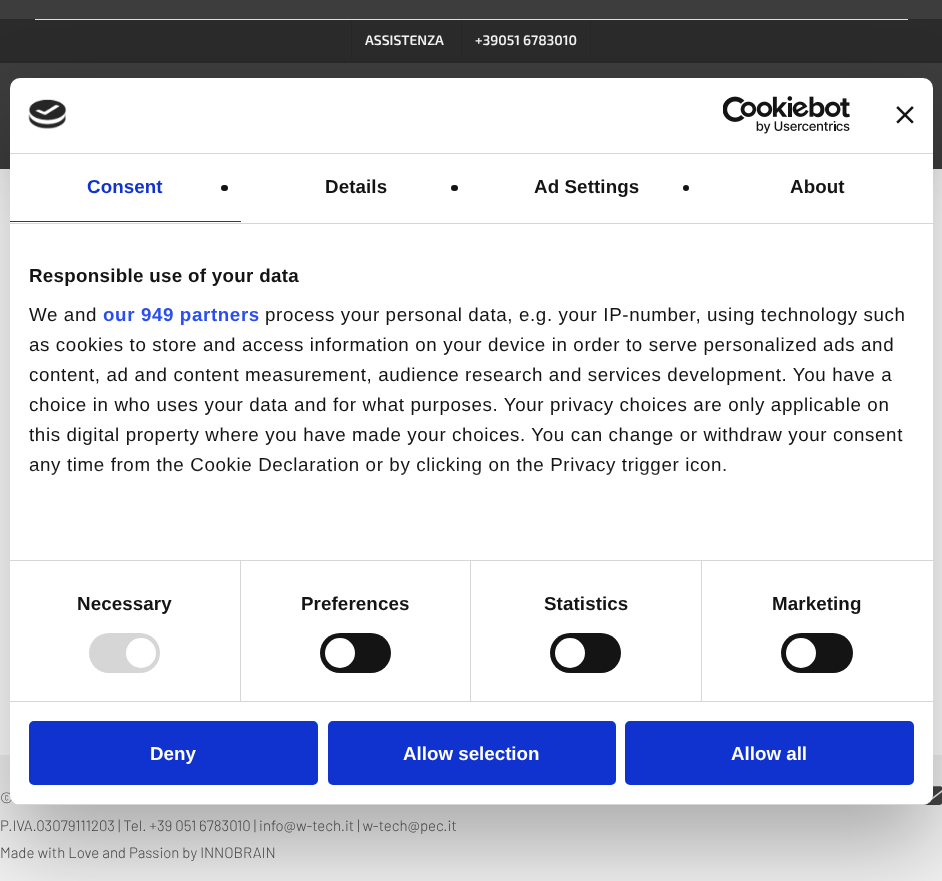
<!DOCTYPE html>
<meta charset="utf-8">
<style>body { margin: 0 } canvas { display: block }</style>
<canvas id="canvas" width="942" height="881"></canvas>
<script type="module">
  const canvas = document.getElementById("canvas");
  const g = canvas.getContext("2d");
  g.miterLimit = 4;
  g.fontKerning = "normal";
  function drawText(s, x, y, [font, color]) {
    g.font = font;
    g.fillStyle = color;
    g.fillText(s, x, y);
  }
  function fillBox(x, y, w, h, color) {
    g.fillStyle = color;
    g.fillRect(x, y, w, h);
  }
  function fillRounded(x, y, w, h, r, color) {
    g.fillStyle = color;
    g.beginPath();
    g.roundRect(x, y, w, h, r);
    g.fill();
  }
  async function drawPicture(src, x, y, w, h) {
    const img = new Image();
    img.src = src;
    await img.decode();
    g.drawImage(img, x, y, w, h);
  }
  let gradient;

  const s1 = ["600 13.75px 'Exo 2'", "#F4F4F4"];
  const s2 = ["300 15px Barlow", "#444444"];
  const s3 = ["bold 18.75px Liberation Sans", "#1032CF"];
  const s4 = ["bold 18.75px Liberation Sans", "#141414"];
  const s5 = ["18.75px Liberation Sans", "#141414"];
  const s6 = ["bold 18.75px Liberation Sans", "#2A4EEF"];
  const s7 = ["bold 18.75px Liberation Sans", "#FFFFFF"];

  fillBox(0, 0, 942, 881, "#FFFFFF");
  g.fillStyle = "rgba(0, 0, 0, 0.15)";
  g.filter = "blur(28px)";
  g.beginPath();
  g.rect(0, 4, 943, 169);
  g.fill();
  g.filter = "none";
  fillBox(0, 0, 942, 169, "#3D3D3D");
  fillBox(0, 19, 942, 44, "#2B2B2B");
  fillBox(0, 61, 942, 1, "#272727");
  fillBox(35, 19, 873, 1, "#DDDDDD");
  fillBox(351, 20, 1, 39, "#272727");
  drawText("ASSISTENZA", 365, 45, s1);
  fillBox(590, 20, 1, 39, "#272727");
  fillBox(461, 20, 1, 39, "#272727");
  drawText("+39051 6783010", 475, 45, s1);
  fillBox(0, 755, 942, 126, "#F2F2F2");
  await drawPicture("pic4.png", 923, 786, 19, 19);
  g.fillStyle = "rgba(0, 0, 0, 0.3)";
  g.filter = "blur(42.5px)";
  g.beginPath();
  g.roundRect(10, 118, 923, 727, 10);
  g.fill();
  g.filter = "none";
  drawText("©", 0, 803, s2);
  fillRounded(10, 78, 923, 727, 10, "#FFFFFF");
  fillBox(10, 153, 923, 1, "#D6D6D6");
  await drawPicture("pic1.png", 28, 99, 39, 30);
  await drawPicture("pic2.png", 723, 96, 127, 38);
  await drawPicture("pic3.png", 896, 106, 18, 18);
  fillBox(10, 223, 923, 1, "#D6D6D6");
  fillBox(10, 221, 231, 1, "#1032CF");
  g.letterSpacing = "0.1px";
  drawText("Consent", 87, 193, s3);
  fillRounded(221, 185, 7, 6, 3, "#141414");
  drawText("Details", 325, 193, s4);
  fillRounded(451, 185, 7, 6, 3, "#141414");
  drawText("Ad Settings", 534, 193, s4);
  g.beginPath();
  g.arc(686, 188, 3, 0, Math.PI * 2);
  g.fill();
  drawText("About", 790, 193, s4);
  fillBox(10, 560, 923, 1, "#D6D6D6");
  g.letterSpacing = "0.3px";
  drawText("Responsible use of your data", 29, 282, s4);
  g.letterSpacing = "0.62px";
  drawText("We and", 29, 321, s5);
  drawText("our 949 partners", 103, 321, s6);
  drawText("process your personal data, e.g. your IP-number, using technology such", 265, 321, s5);
  drawText("as cookies to store and access information on your device in order to serve personalized ads and", 29, 351, s5);
  drawText("content, ad and content measurement, audience research and services development. You have a", 29, 381, s5);
  drawText("choice in who uses your data and for what purposes. Your privacy choices are only applicable on", 29, 411, s5);
  drawText("this digital property where you have made your choices. You can change or withdraw your consent", 29, 441, s5);
  drawText("any time from the Cookie Declaration or by clicking on the Privacy trigger icon.", 29, 471, s5);
  gradient = g.createLinearGradient(463, 560, 463, 466);
  gradient.addColorStop(0, "#FFFFFF");
  gradient.addColorStop(0.5, "rgba(255, 255, 255, 0.8)");
  gradient.addColorStop(1, "rgba(255, 255, 255, 0)");
  g.fillStyle = gradient;
  g.fillRect(29, 467, 697, 8);
  fillBox(10, 701, 923, 1, "#D6D6D6");
  fillBox(240, 561, 1, 140, "#D6D6D6");
  g.letterSpacing = "0.1px";
  drawText("Necessary", 77, 610, s4);
  fillRounded(89, 633, 71, 40, 20, "#D6D6D6");
  g.fillStyle = "#FFFFFF";
  g.beginPath();
  g.arc(141, 653, 15, 0, Math.PI * 2);
  g.fill();
  fillBox(470, 561, 1, 140, "#D6D6D6");
  drawText("Preferences", 301, 610, s4);
  fillRounded(320, 633, 71, 40, 20, "#141414");
  g.fillStyle = "#FFFFFF";
  g.beginPath();
  g.arc(340, 653, 15, 0, Math.PI * 2);
  g.fill();
  fillBox(701, 561, 1, 140, "#D6D6D6");
  drawText("Statistics", 544, 610, s4);
  fillRounded(550, 633, 71, 40, 20, "#141414");
  g.fillStyle = "#FFFFFF";
  g.beginPath();
  g.arc(570, 653, 15, 0, Math.PI * 2);
  g.fill();
  drawText("Marketing", 772, 610, s4);
  fillRounded(781, 633, 72, 40, 20, "#141414");
  g.fillStyle = "#FFFFFF";
  g.beginPath();
  g.arc(801, 653, 15, 0, Math.PI * 2);
  g.fill();
  g.save();
  g.beginPath();
  g.roundRect(10, 78, 923, 727, 10);
  g.clip();
  fillBox(10, 804, 923, 1, "#D6D6D6");
  g.restore();
  g.fillStyle = "#1032CF";
  g.beginPath();
  g.roundRect(30.5, 722.5, 286, 61, 3.5);
  g.fill();
  g.strokeStyle = "#1032CF";
  g.lineWidth = 3;
  g.stroke();
  g.letterSpacing = "0px";
  drawText("Deny", 150, 760, s7);
  g.fillStyle = "#1032CF";
  g.beginPath();
  g.roundRect(329.5, 722.5, 285, 61, 3.5);
  g.fill();
  g.stroke();
  drawText("Allow selection", 403, 760, s7);
  g.fillStyle = "#1032CF";
  g.beginPath();
  g.roundRect(626.5, 722.5, 286, 61, 3.5);
  g.fill();
  g.stroke();
  drawText("Allow all", 731, 760, s7);
  drawText("P.IVA.03079111203 | Tel. +39 051 6783010 | info@w-tech.it | w-tech@pec.it", 0, 831, s2);
  drawText("Made with Love and Passion by INNOBRAIN", 0, 858, s2);
</script>
